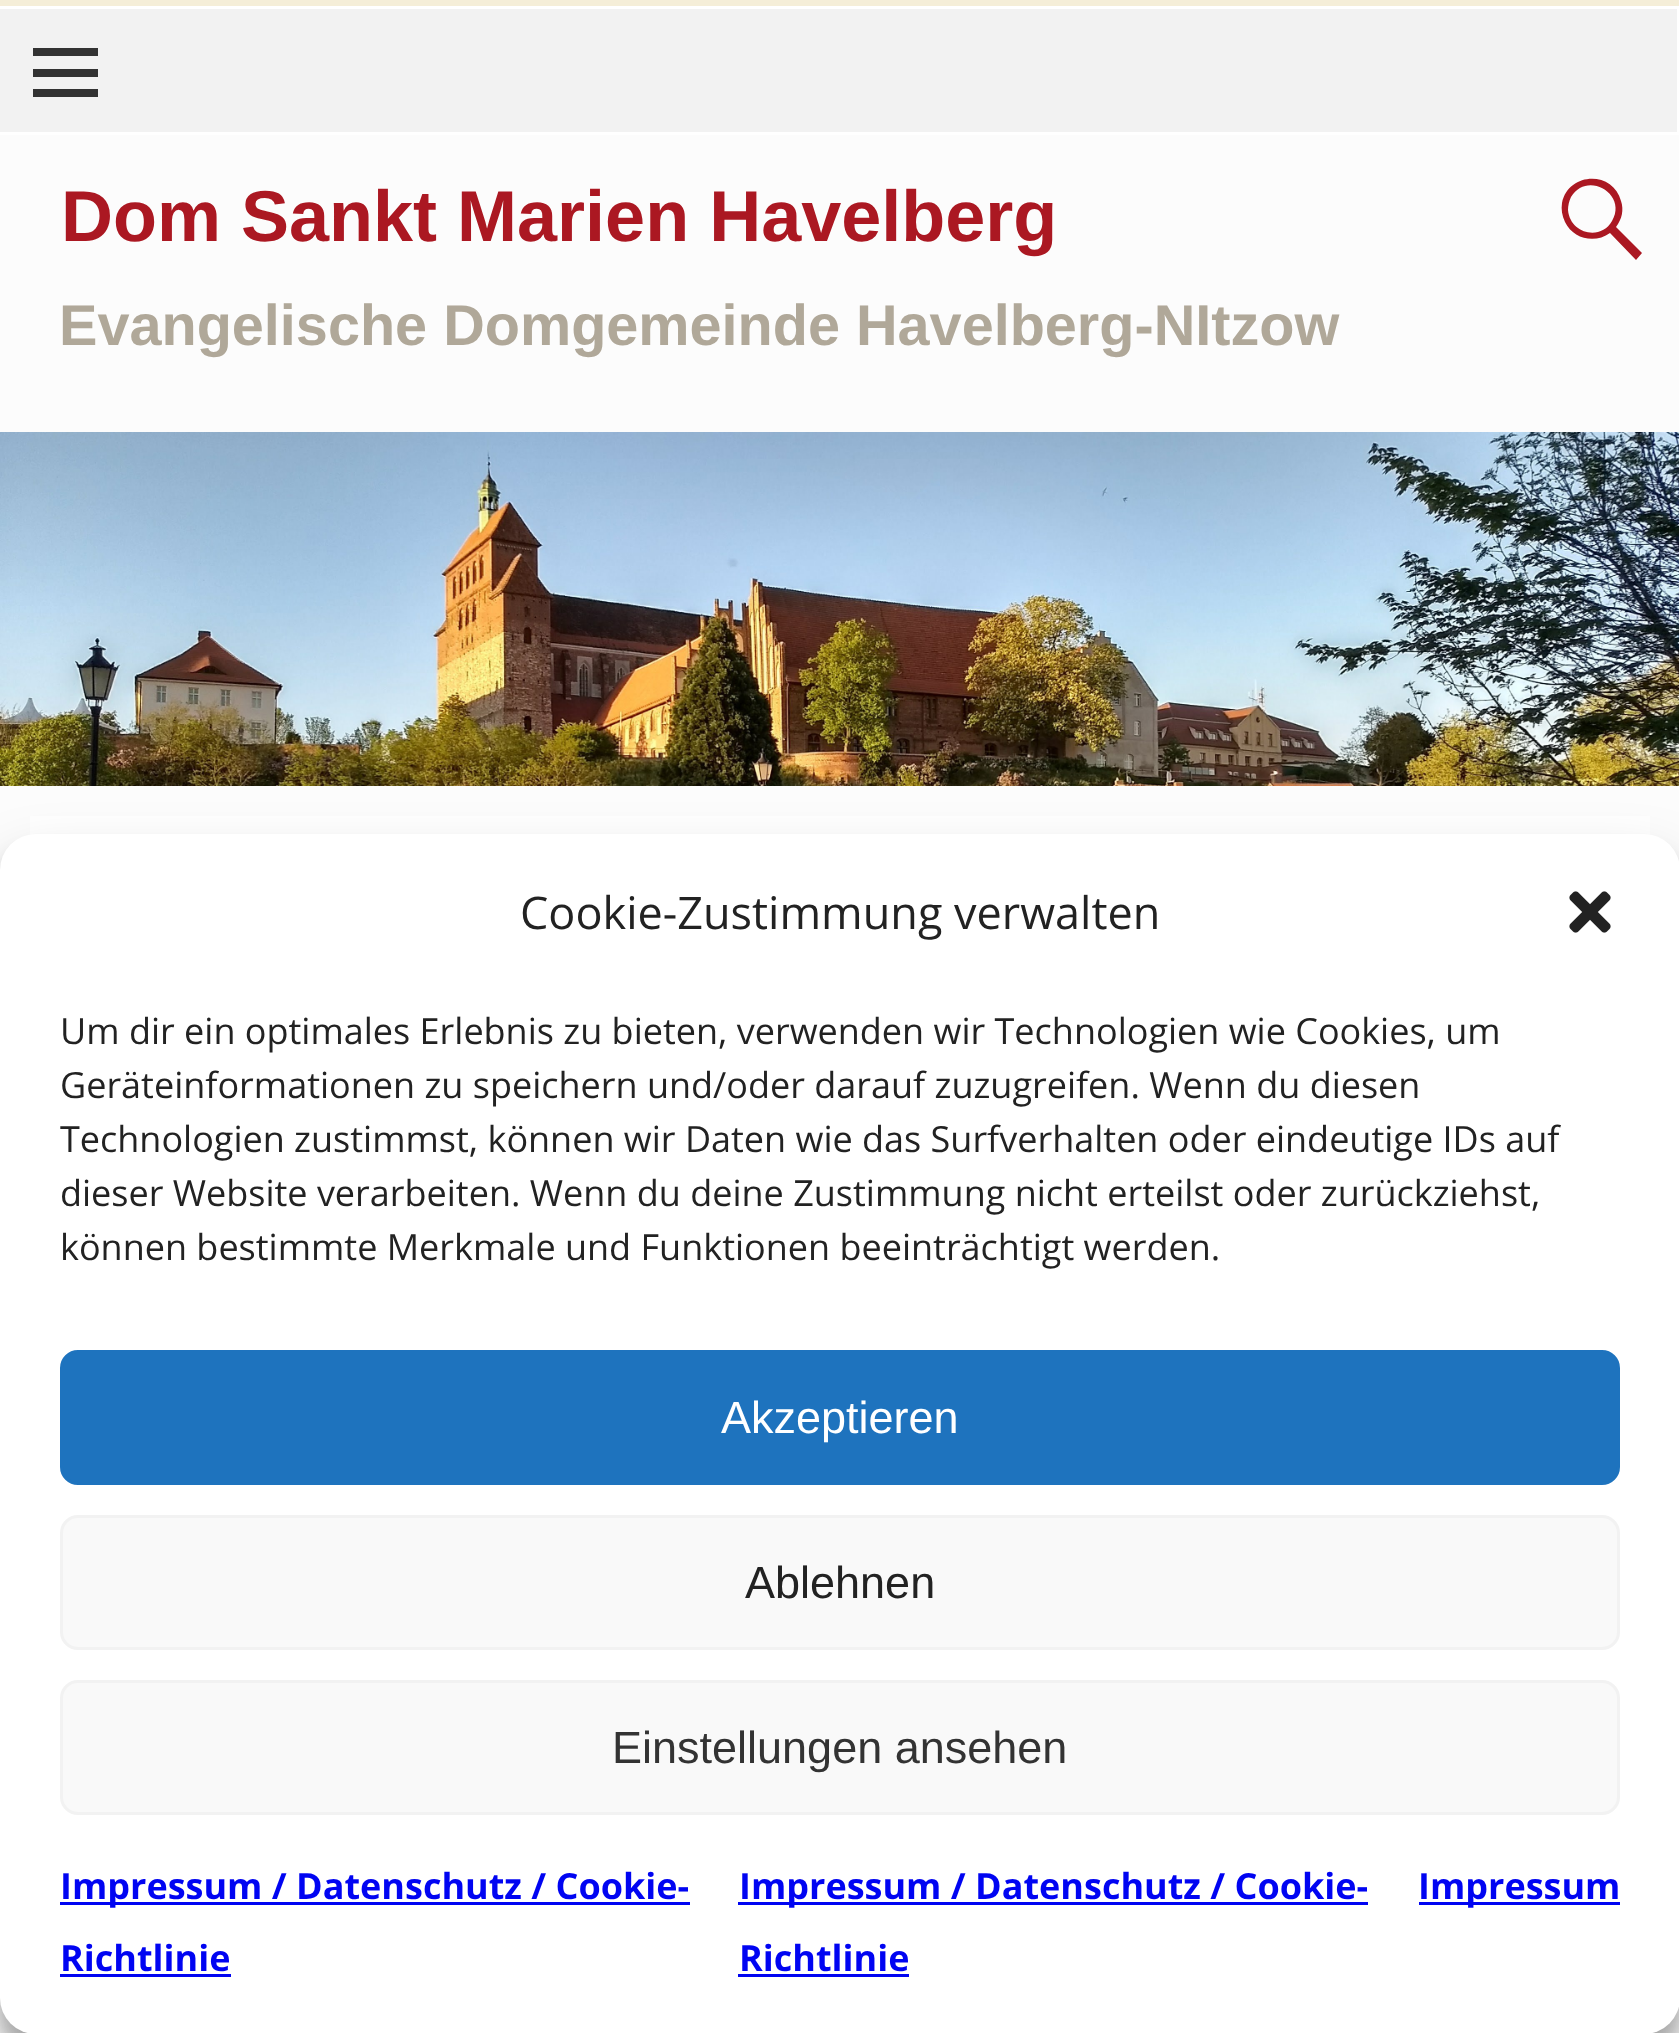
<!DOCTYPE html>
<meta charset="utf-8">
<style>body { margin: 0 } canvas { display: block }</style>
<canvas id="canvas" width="1679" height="2033"></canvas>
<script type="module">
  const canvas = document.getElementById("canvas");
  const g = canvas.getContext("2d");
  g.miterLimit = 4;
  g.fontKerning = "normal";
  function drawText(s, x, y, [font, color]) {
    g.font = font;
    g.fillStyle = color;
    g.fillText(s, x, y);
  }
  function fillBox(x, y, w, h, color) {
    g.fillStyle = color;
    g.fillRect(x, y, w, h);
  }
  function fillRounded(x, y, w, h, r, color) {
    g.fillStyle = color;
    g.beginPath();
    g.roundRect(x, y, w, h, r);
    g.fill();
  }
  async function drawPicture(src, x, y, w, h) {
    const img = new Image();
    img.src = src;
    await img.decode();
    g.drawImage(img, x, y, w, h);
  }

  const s1 = ["bold 72px Liberation Sans", "#AB1822"];
  const s2 = ["bold 57.6px Liberation Sans", "#B0A899"];
  const s3 = ["45px Open Sans", "#222222"];
  const s4 = ["36px Open Sans", "#222222"];
  const s5 = ["45px Liberation Sans", "#FFFFFF"];
  const s6 = ["45px Liberation Sans", "#222222"];
  const s7 = ["45px Liberation Sans", "#333333"];
  const s8 = ["bold 36px Open Sans", "#0004F2"];

  fillBox(0, 0, 1679, 2033, "#F5EED8");
  fillBox(0, 135, 1679, 1898, "#FCFCFC");
  g.fillStyle = "#F2F2F2";
  g.beginPath();
  g.rect(-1.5, 7.5, 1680, 126);
  g.fill();
  g.strokeStyle = "#FFFFFF";
  g.lineWidth = 3;
  g.stroke();
  g.fillStyle = "#333333";
  g.beginPath();
  g.moveTo(33, 97);
  g.lineTo(33, 89);
  g.lineTo(98, 89);
  g.lineTo(98, 97);
  g.closePath();
  g.moveTo(33, 48);
  g.lineTo(98, 48);
  g.lineTo(98, 56);
  g.lineTo(33, 56);
  g.closePath();
  g.moveTo(33, 77);
  g.lineTo(33, 69);
  g.lineTo(98, 69);
  g.lineTo(98, 77);
  g.closePath();
  g.fill();
  drawText("Dom Sankt Marien Havelberg", 61, 241, s1);
  g.beginPath();
  g.moveTo(1642, 253);
  g.lineTo(1636, 260);
  g.lineTo(1610, 233);
  g.bezierCurveTo(1595, 244, 1573, 239, 1565, 222);
  g.bezierCurveTo(1562, 216, 1561, 209, 1562, 203);
  g.bezierCurveTo(1568, 172, 1613, 170, 1621, 201);
  g.bezierCurveTo(1624, 210, 1622, 219, 1616, 227);
  g.closePath();
  g.moveTo(1571, 197);
  g.bezierCurveTo(1569, 201, 1568, 206, 1568, 210);
  g.bezierCurveTo(1570, 234, 1601, 241, 1612, 221);
  g.bezierCurveTo(1628, 194, 1587, 170, 1571, 197);
  g.closePath();
  g.fill();
  drawText("Evangelische Domgemeinde Havelberg-NItzow", 59, 345, s2);
  await drawPicture("pic1.png", 0, 432, 1679, 354);
  fillBox(30, 816, 1620, 19, "#FFFFFF");
  g.fillStyle = "rgba(0, 0, 0, 0.23)";
  g.filter = "blur(9px)";
  g.beginPath();
  g.roundRect(0, 852, 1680, 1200, 36);
  g.fill();
  g.filter = "none";
  g.fillStyle = "rgba(0, 0, 0, 0.19)";
  g.filter = "blur(30px)";
  g.beginPath();
  g.roundRect(0, 864, 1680, 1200, 36);
  g.fill();
  g.filter = "none";
  fillRounded(0, 834, 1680, 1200, 36, "#FFFFFF");
  drawText("Cookie-Zustimmung verwalten", 520, 929, s3);
  await drawPicture("pic2.png", 1569, 891, 42, 42);
  drawText("Um dir ein optimales Erlebnis zu bieten, verwenden wir Technologien wie Cookies, um", 60, 1044, s4);
  drawText("Geräteinformationen zu speichern und/oder darauf zuzugreifen. Wenn du diesen", 60, 1098, s4);
  drawText("Technologien zustimmst, können wir Daten wie das Surfverhalten oder eindeutige IDs auf", 60, 1152, s4);
  drawText("dieser Website verarbeiten. Wenn du deine Zustimmung nicht erteilst oder zurückziehst,", 60, 1206, s4);
  drawText("können bestimmte Merkmale und Funktionen beeinträchtigt werden.", 60, 1260, s4);
  g.fillStyle = "#1E73BE";
  g.beginPath();
  g.roundRect(61.5, 1351.5, 1557, 132, 16.5);
  g.fill();
  g.strokeStyle = "#1E73BE";
  g.stroke();
  drawText("Akzeptieren", 721, 1433, s5);
  g.fillStyle = "#F9F9F9";
  g.beginPath();
  g.roundRect(61.5, 1516.5, 1557, 132, 16.5);
  g.fill();
  g.strokeStyle = "#F2F2F2";
  g.stroke();
  drawText("Ablehnen", 745, 1598, s6);
  g.fillStyle = "#F9F9F9";
  g.beginPath();
  g.roundRect(61.5, 1681.5, 1557, 132, 16.5);
  g.fill();
  g.stroke();
  drawText("Einstellungen ansehen", 612, 1763, s7);
  fillBox(60, 1902, 630, 3, "#0004F2");
  drawText("Impressum / Datenschutz / Cookie-", 60, 1899, s8);
  drawText("Richtlinie", 60, 1971, s8);
  fillBox(60, 1974, 171, 3, "#0004F2");
  fillBox(738, 1902, 630, 3, "#0004F2");
  drawText("Impressum / Datenschutz / Cookie-", 739, 1899, s8);
  drawText("Richtlinie", 739, 1971, s8);
  fillBox(738, 1974, 171, 3, "#0004F2");
  fillBox(1419, 1902, 201, 3, "#0004F2");
  drawText("Impressum", 1418, 1899, s8);
</script>
